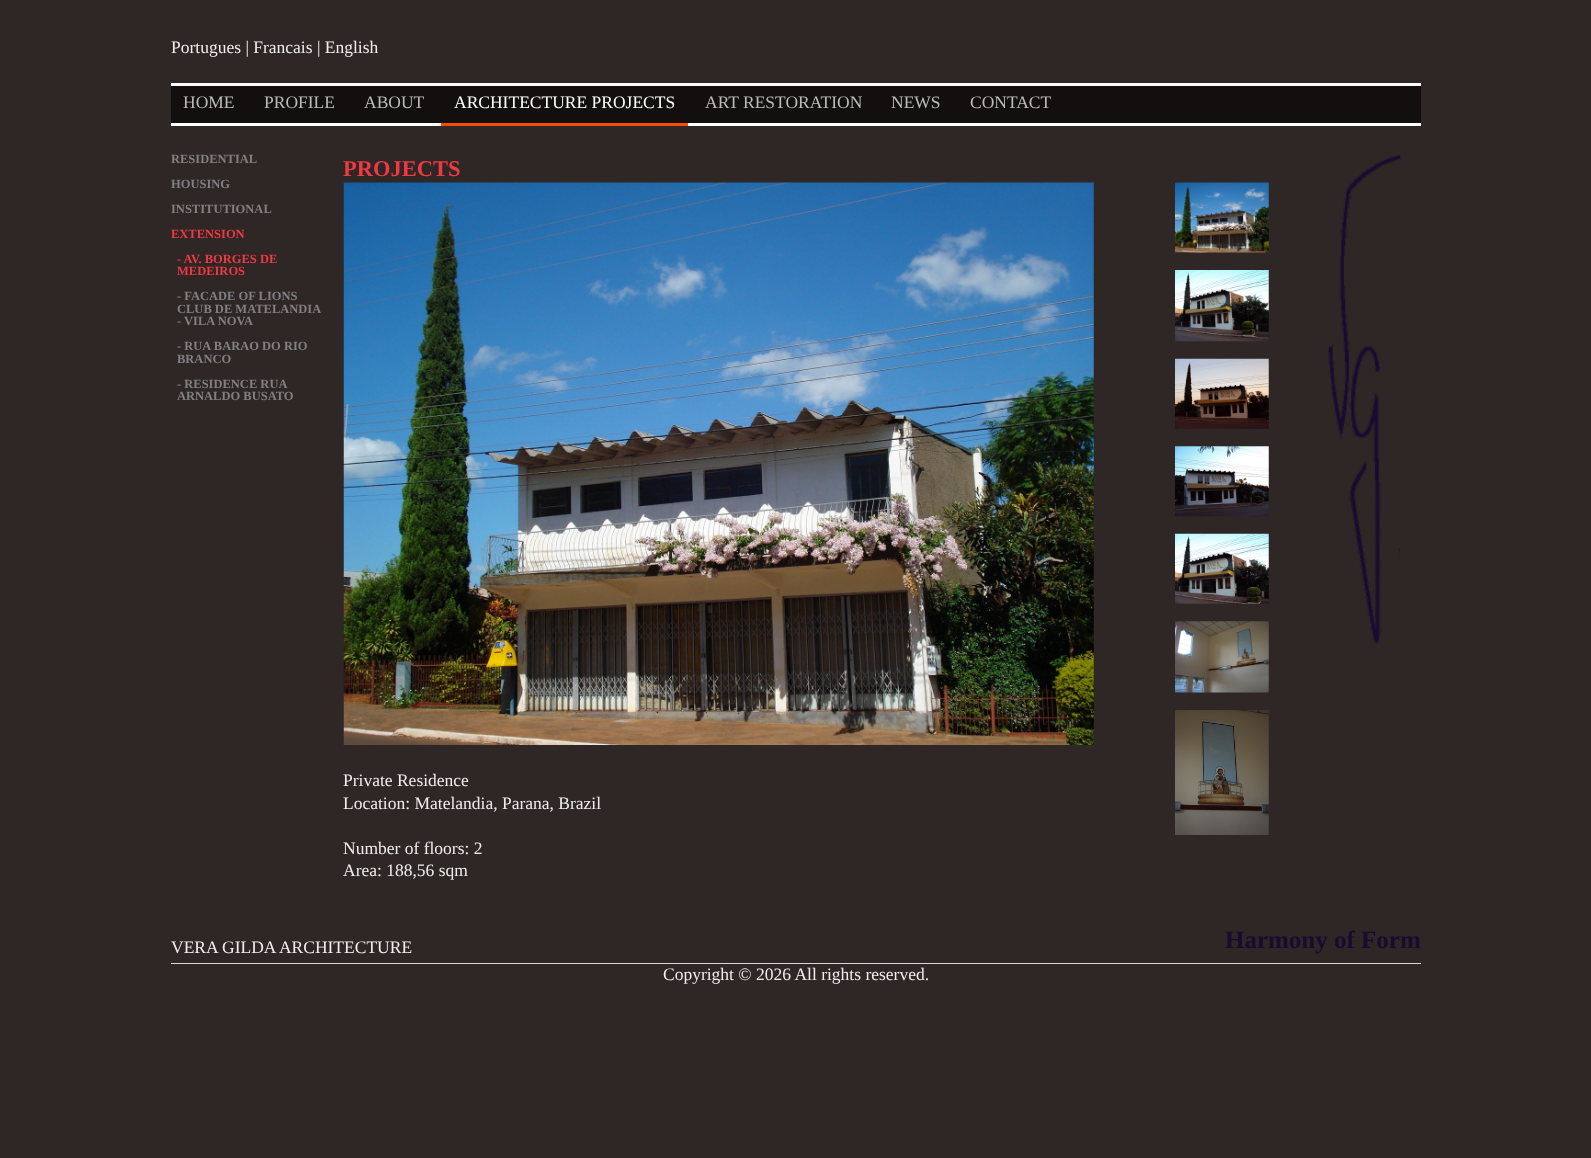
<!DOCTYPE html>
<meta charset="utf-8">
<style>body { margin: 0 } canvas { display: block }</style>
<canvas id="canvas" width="1591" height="1158"></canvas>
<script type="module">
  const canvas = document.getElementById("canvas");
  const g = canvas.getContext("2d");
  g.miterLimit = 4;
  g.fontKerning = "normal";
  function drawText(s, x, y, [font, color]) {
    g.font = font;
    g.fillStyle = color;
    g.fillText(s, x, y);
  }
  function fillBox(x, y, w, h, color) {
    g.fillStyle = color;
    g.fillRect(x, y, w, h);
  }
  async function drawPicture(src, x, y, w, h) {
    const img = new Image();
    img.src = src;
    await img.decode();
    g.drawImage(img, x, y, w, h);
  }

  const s1 = ["17.5px Liberation Serif", "#EEEEEE"];
  const s2 = ["17.5px Liberation Serif", "#BBBBBB"];
  const s3 = ["17.5px Liberation Serif", "#FFFFFF"];
  const s4 = ["bold 12.5px Liberation Serif", "#818181"];
  const s5 = ["bold 12.5px Liberation Serif", "#EE3A43"];
  const s6 = ["bold 22.5px Liberation Serif", "#EE3A43"];
  const s7 = ["bold 25px Liberation Serif", "#190B2F"];

  fillBox(0, 0, 1591, 1158, "#2F2626");
  drawText("Portugues | Francais | English", 171, 53, s1);
  fillBox(171, 86, 1250, 37, "#130F0F");
  fillBox(171, 83, 1250, 3, "#FFFFFF");
  fillBox(171, 123, 1250, 3, "#FFFFFF");
  drawText("HOME", 183, 108, s2);
  drawText("PROFILE", 264, 108, s2);
  drawText("ABOUT", 364, 108, s2);
  drawText("ARCHITECTURE PROJECTS", 454, 108, s3);
  drawText("ART RESTORATION", 705, 108, s2);
  drawText("NEWS", 891, 108, s2);
  drawText("CONTACT", 970, 108, s2);
  fillBox(441, 123, 247, 3, "#FE4902");
  drawText("RESIDENTIAL", 171, 163, s4);
  drawText("HOUSING", 171, 188, s4);
  drawText("INSTITUTIONAL", 171, 213, s4);
  drawText("EXTENSION", 171, 238, s5);
  drawText("- AV. BORGES DE", 177, 263, s5);
  drawText("MEDEIROS", 177, 275, s5);
  drawText("- FACADE OF LIONS", 177, 300, s4);
  drawText("CLUB DE MATELANDIA", 177, 313, s4);
  drawText("- VILA NOVA", 177, 325, s4);
  drawText("- RUA BARAO DO RIO", 177, 350, s4);
  drawText("BRANCO", 177, 363, s4);
  drawText("- RESIDENCE RUA", 177, 388, s4);
  drawText("ARNALDO BUSATO", 177, 400, s4);
  drawText("PROJECTS", 343, 176, s6);
  await drawPicture("pic1.png", 343, 182, 751, 563);
  await drawPicture("pic2.png", 1175, 182, 94, 71);
  await drawPicture("pic3.png", 1175, 270, 94, 72);
  await drawPicture("pic4.png", 1175, 358, 94, 71);
  await drawPicture("pic5.png", 1175, 446, 94, 71);
  await drawPicture("pic6.png", 1175, 533, 94, 71);
  await drawPicture("pic7.png", 1175, 621, 94, 72);
  await drawPicture("pic8.png", 1175, 710, 94, 125);
  drawText("Private Residence", 343, 786, s1);
  drawText("Location: Matelandia, Parana, Brazil", 343, 809, s1);
  drawText("Number of floors: 2", 343, 854, s1);
  drawText("Area: 188,56 sqm", 343, 876, s1);
  await drawPicture("pic9.png", 1328, 154, 73, 490);
  fillBox(171, 963, 1250, 1, "#D7D7D7");
  drawText("VERA GILDA ARCHITECTURE", 171, 953, s1);
  drawText("Harmony of Form", 1225, 948, s7);
  drawText("Copyright © 2026 All rights reserved.", 663, 980, s1);
</script>
